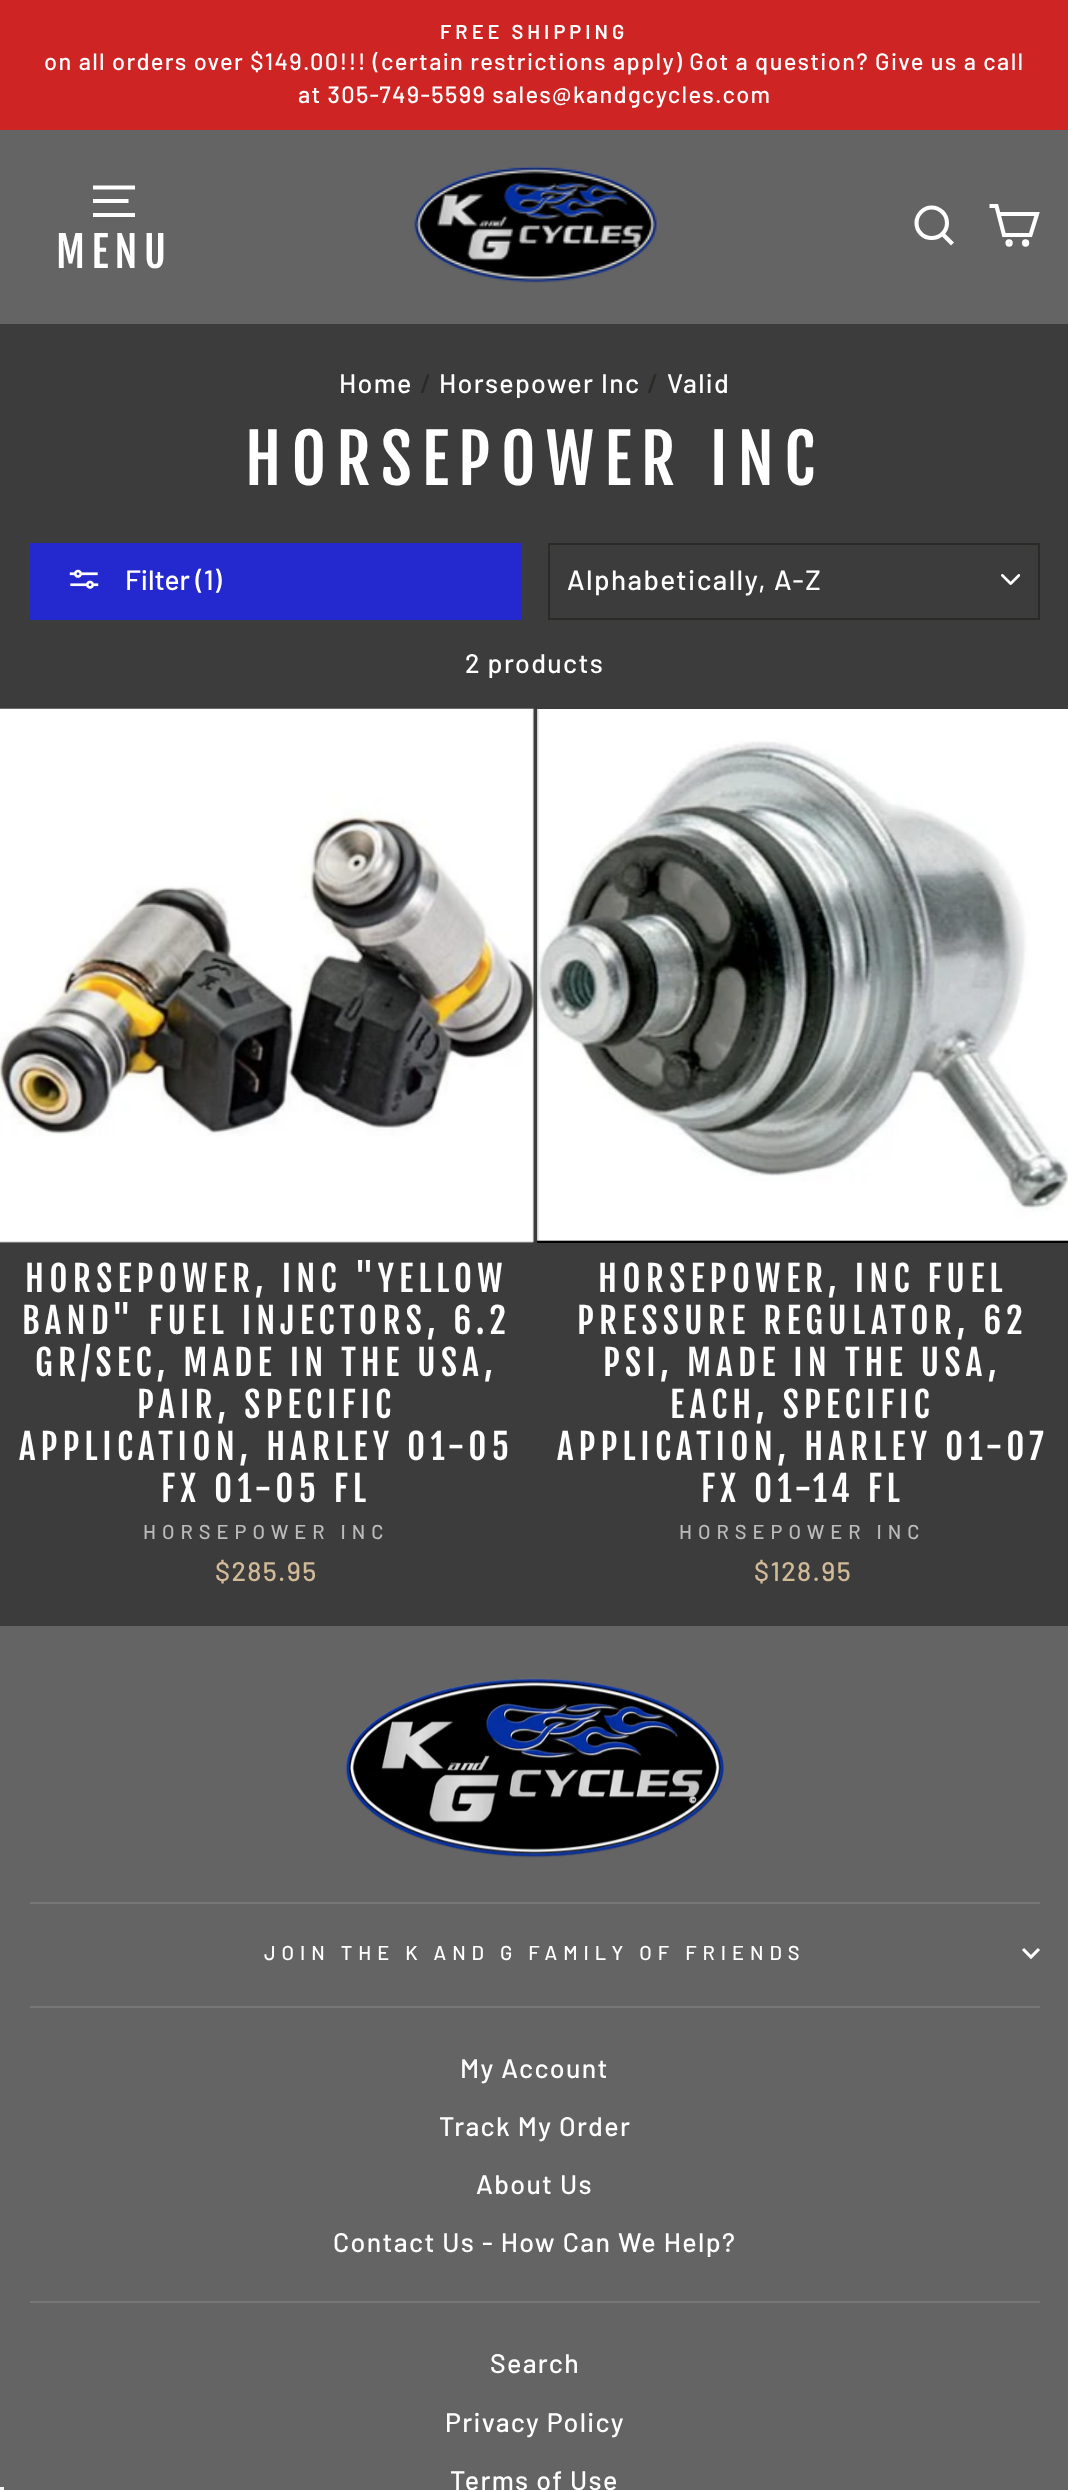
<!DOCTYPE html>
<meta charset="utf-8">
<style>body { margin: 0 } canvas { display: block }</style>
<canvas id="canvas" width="1068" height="2490"></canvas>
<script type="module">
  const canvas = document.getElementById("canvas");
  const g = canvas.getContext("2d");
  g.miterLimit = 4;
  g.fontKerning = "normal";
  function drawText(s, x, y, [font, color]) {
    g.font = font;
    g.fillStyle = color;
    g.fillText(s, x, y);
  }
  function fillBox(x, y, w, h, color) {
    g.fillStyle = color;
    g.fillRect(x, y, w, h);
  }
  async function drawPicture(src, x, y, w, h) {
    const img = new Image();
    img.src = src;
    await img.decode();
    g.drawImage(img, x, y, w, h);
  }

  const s1 = ["600 20.1px Barlow", "#FFFFFF"];
  const s2 = ["500 23.6px Barlow", "#FFFFFF"];
  const s3 = ["42px Fjalla One", "#FFFFFF"];
  const s4 = ["500 26.75px Barlow", "#FFFFFF"];
  const s5 = ["500 26.75px Barlow", "#2B2A27"];
  const s6 = ["67px Fjalla One", "#FFFFFF"];
  const s7 = ["500 28px Barlow", "#FFFFFF"];
  const s8 = ["35px Fjalla One", "#FFFFFF"];
  const s9 = ["500 20.1px Barlow", "#BBBBBB"];
  const s10 = ["500 26.75px Barlow", "#D1BA98"];
  const s11 = ["500 20.1px Barlow", "#FFFFFF"];

  fillBox(0, 0, 1068, 2490, "#3D3C3C");
  fillBox(0, 1626, 1068, 864, "#656464");
  fillBox(0, 2487, 4, 3, "#F5F5F5");
  fillBox(0, 0, 1068, 130, "#CF2424");
  g.letterSpacing = "4px";
  drawText("FREE SHIPPING", 440, 39, s1);
  g.letterSpacing = "1.35px";
  drawText("on all orders over $149.00!!! (certain restrictions apply) Got a question? Give us a call", 44, 70, s2);
  drawText("at 305-749-5599 sales@kandgcycles.com", 298, 103, s2);
  fillBox(0, 130, 1068, 194, "#656464");
  await drawPicture("pic1.png", 414, 166, 243, 117);
  g.beginPath();
  g.moveTo(947, 223);
  g.bezierCurveTo(947, 231.5, 940, 238, 931.5, 238);
  g.bezierCurveTo(923.5, 238, 916.5, 231.5, 916.5, 223);
  g.bezierCurveTo(916.5, 214.5, 923.5, 207.5, 931.5, 207.5);
  g.bezierCurveTo(940, 207.5, 947, 214.5, 947, 223);
  g.closePath();
  g.moveTo(952.5, 244);
  g.lineTo(942.5, 234);
  g.strokeStyle = "#FFFFFF";
  g.lineWidth = 4.1;
  g.stroke();
  g.beginPath();
  g.moveTo(998.5, 214);
  g.lineTo(1037, 214);
  g.lineTo(1030.5, 235);
  g.lineTo(1004, 235);
  g.lineTo(996.5, 206);
  g.lineTo(989.5, 206);
  g.stroke();
  g.beginPath();
  g.arc(1009.1, 243, 1.6, 0, Math.PI * 2);
  g.stroke();
  g.fillStyle = "#FFFFFF";
  g.beginPath();
  g.arc(1025.6, 243, 1.6, 0, Math.PI * 2);
  g.fill();
  g.stroke();
  g.beginPath();
  g.moveTo(93, 187.5);
  g.lineTo(135, 187.5);
  g.moveTo(93, 201);
  g.lineTo(128.5, 201);
  g.moveTo(93, 215);
  g.lineTo(135, 215);
  g.stroke();
  g.letterSpacing = "6.5px";
  drawText("MENU", 56, 268, s3);
  g.letterSpacing = "1.35px";
  drawText("Home", 339, 393, s4);
  drawText("/", 420, 393, s5);
  drawText("Horsepower Inc", 439, 393, s4);
  drawText("/", 647, 393, s5);
  drawText("Valid", 667, 393, s4);
  g.letterSpacing = "10px";
  drawText("HORSEPOWER INC", 245, 485, s6);
  fillBox(30, 543, 492, 77, "#2428CF");
  await drawPicture("pic2.png", 69, 569, 30, 20);
  g.letterSpacing = "0px";
  drawText("Filter (1)", 125, 590, s7);
  await drawPicture("pic3.png", 1001, 574, 19, 11);
  g.strokeStyle = "#2B2A27";
  g.lineWidth = 2;
  g.strokeRect(549, 544, 490, 75);
  g.letterSpacing = "1.4px";
  drawText("Alphabetically, A-Z", 567, 590, s7);
  g.letterSpacing = "1.35px";
  drawText("2 products", 465, 673, s4);
  fillBox(0, 709, 534, 534, "#000000");
  await drawPicture("pic4.png", 0, 708, 534, 535);
  g.letterSpacing = "5.25px";
  drawText("HORSEPOWER, INC \"YELLOW", 25, 1292, s8);
  drawText("BAND\" FUEL INJECTORS, 6.2", 22, 1334, s8);
  drawText("GR/SEC, MADE IN THE USA,", 35, 1376, s8);
  drawText("PAIR, SPECIFIC", 137, 1418, s8);
  drawText("APPLICATION, HARLEY 01-05", 19, 1460, s8);
  drawText("FX 01-05 FL", 161, 1502, s8);
  g.letterSpacing = "6px";
  drawText("HORSEPOWER INC", 143, 1539, s9);
  g.letterSpacing = "1.35px";
  drawText("$285.95", 215, 1581, s10);
  fillBox(537, 709, 531, 534, "#000000");
  await drawPicture("pic5.png", 537, 709, 531, 532);
  g.letterSpacing = "5.25px";
  drawText("HORSEPOWER, INC FUEL", 598, 1292, s8);
  drawText("PRESSURE REGULATOR, 62", 577, 1334, s8);
  drawText("PSI, MADE IN THE USA,", 603, 1376, s8);
  drawText("EACH, SPECIFIC", 670, 1418, s8);
  drawText("APPLICATION, HARLEY 01-07", 557, 1460, s8);
  drawText("FX 01-14 FL", 701, 1502, s8);
  g.letterSpacing = "6px";
  drawText("HORSEPOWER INC", 679, 1539, s9);
  g.letterSpacing = "1.35px";
  drawText("$128.95", 754, 1581, s10);
  await drawPicture("pic6.png", 345, 1678, 379, 180);
  fillBox(30, 1902, 1010, 2, "#777777");
  g.letterSpacing = "6px";
  drawText("JOIN THE K AND G FAMILY OF FRIENDS", 264, 1960, s11);
  g.beginPath();
  g.moveTo(1023, 1949);
  g.lineTo(1031, 1957);
  g.lineTo(1039, 1949);
  g.strokeStyle = "#FFFFFF";
  g.lineWidth = 3.1;
  g.stroke();
  fillBox(30, 2006, 1010, 2, "#777777");
  g.letterSpacing = "1.35px";
  drawText("My Account", 460, 2078, s4);
  drawText("Track My Order", 439, 2136, s4);
  drawText("About Us", 476, 2194, s4);
  drawText("Contact Us - How Can We Help?", 333, 2252, s4);
  fillBox(30, 2301, 1010, 2, "#777777");
  drawText("Search", 490, 2373, s4);
  drawText("Privacy Policy", 445, 2432, s4);
  drawText("Terms of Use", 450, 2490, s4);
</script>
